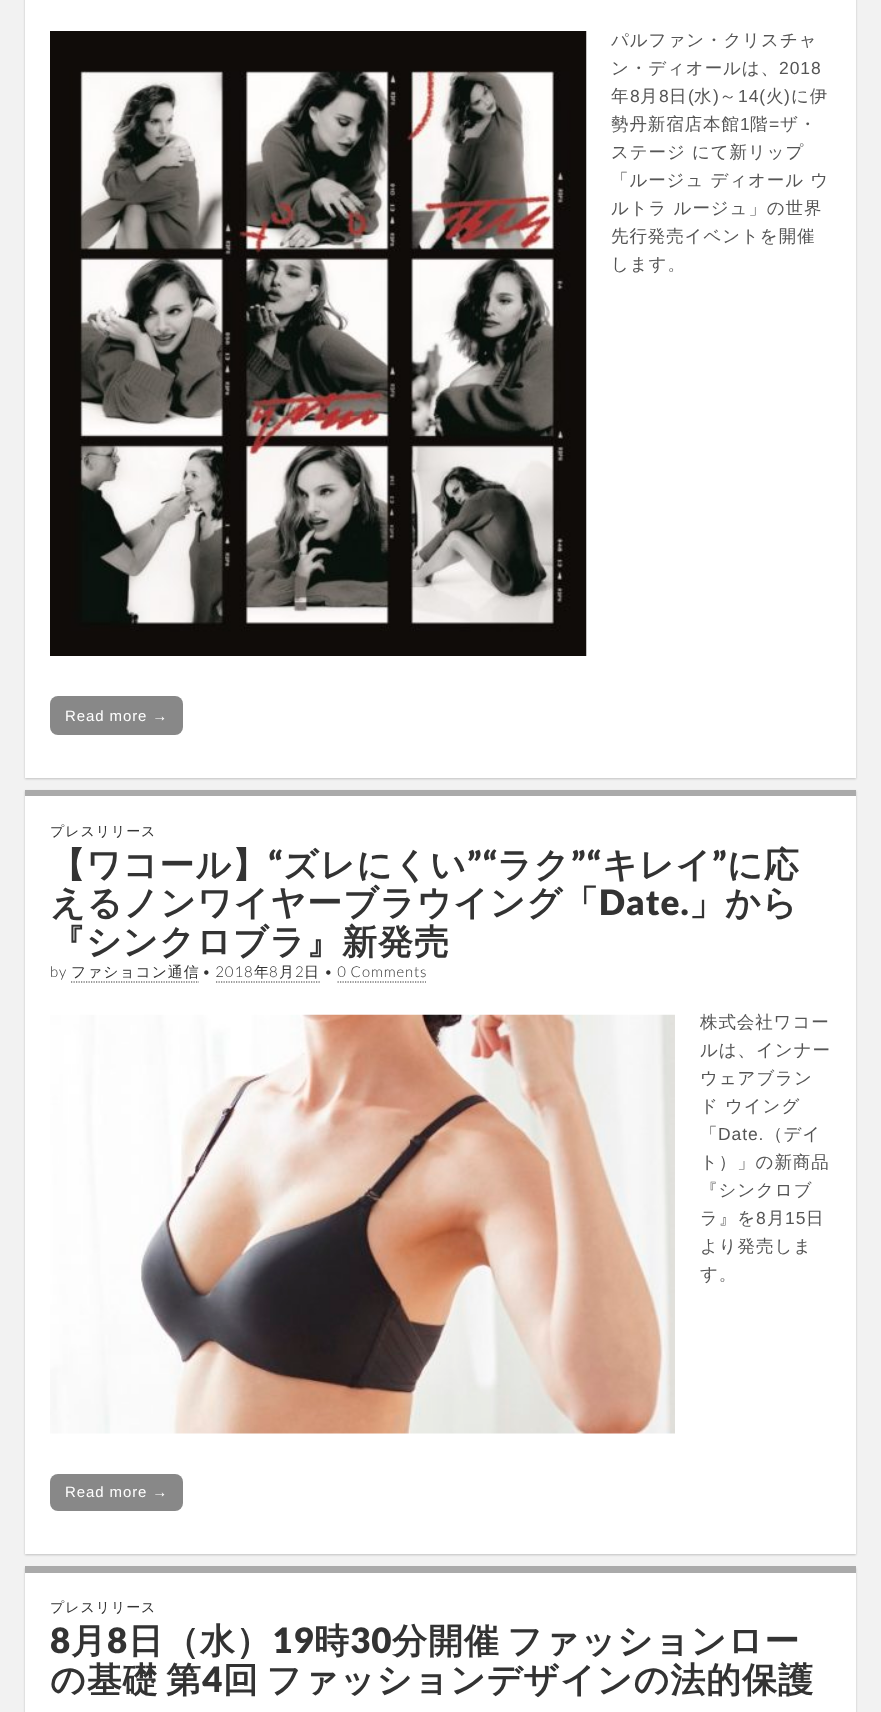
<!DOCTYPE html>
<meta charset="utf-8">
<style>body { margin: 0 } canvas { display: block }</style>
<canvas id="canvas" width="881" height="1712"></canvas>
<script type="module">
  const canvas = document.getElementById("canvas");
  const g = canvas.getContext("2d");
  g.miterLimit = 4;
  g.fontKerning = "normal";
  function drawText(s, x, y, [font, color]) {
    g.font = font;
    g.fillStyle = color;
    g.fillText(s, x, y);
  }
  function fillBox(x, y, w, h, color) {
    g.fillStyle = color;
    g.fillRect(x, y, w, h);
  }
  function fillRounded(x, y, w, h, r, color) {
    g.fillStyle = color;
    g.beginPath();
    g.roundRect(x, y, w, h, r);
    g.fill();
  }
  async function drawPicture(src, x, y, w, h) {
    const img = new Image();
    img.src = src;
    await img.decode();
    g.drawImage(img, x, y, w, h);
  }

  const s1 = ["500 17.5px WenQuanYi Zen Hei", "#555555"];
  const s2 = ["17.5px Liberation Sans", "#555555"];
  const s3 = ["15px Liberation Sans", "#FFFFFF"];
  const s4 = ["500 14px WenQuanYi Zen Hei", "#333333"];
  const s5 = ["bold 35px WenQuanYi Zen Hei", "#333333"];
  const s6 = ["900 35px Lato", "#333333"];
  const s7 = ["300 14.9px Lato", "#333333"];
  const s8 = ["500 14.9px WenQuanYi Zen Hei", "#333333"];

  fillBox(0, 0, 881, 1712, "#F2F2F2");
  g.fillStyle = "rgba(0, 0, 0, 0.2)";
  g.filter = "blur(1px)";
  g.beginPath();
  g.rect(25, -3, 831, 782);
  g.fill();
  g.filter = "none";
  fillBox(25, 0, 831, 778, "#FFFFFF");
  g.beginPath();
  g.moveTo(71, -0.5);
  g.lineTo(199, -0.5);
  g.strokeStyle = "#333333";
  g.lineWidth = 1.2;
  g.setLineDash([1.25, 1.25]);
  g.stroke();
  g.beginPath();
  g.moveTo(216, -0.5);
  g.lineTo(320, -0.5);
  g.stroke();
  g.beginPath();
  g.moveTo(337.5, -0.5);
  g.lineTo(426, -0.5);
  g.stroke();
  await drawPicture("pic1.png", 50, 31, 537, 625);
  g.letterSpacing = "0.9px";
  drawText("パルファン・クリスチャ", 611, 46, s1);
  drawText("ン・ディオールは、", 611, 74, s1);
  drawText("2018", 779, 74, s2);
  drawText("年", 611, 102, s1);
  drawText("8", 630, 102, s2);
  drawText("月", 640, 102, s1);
  drawText("8", 659, 102, s2);
  drawText("日", 669, 102, s1);
  drawText("(", 688, 102, s2);
  drawText("水", 694, 102, s1);
  drawText(")", 713, 102, s2);
  drawText("～", 719, 102, s1);
  drawText("14(", 738, 102, s2);
  drawText("火", 766, 102, s1);
  drawText(")", 784, 102, s2);
  drawText("に伊", 791, 102, s1);
  drawText("勢丹新宿店本館", 611, 130, s1);
  drawText("1", 740, 130, s2);
  drawText("階", 750, 130, s1);
  drawText("=", 769, 130, s2);
  drawText("ザ・", 780, 130, s1);
  drawText("ステージ にて新リップ", 611, 158, s1);
  drawText("「ルージュ ディオール ウ", 611, 186, s1);
  drawText("ルトラ ルージュ」の世界", 611, 214, s1);
  drawText("先行発売イベントを開催", 611, 242, s1);
  drawText("します。", 611, 270, s1);
  fillRounded(50, 696, 133, 39, 8, "#888888");
  drawText("Read more →", 65, 721, s3);
  g.fillStyle = "rgba(0, 0, 0, 0.2)";
  g.filter = "blur(1px)";
  g.beginPath();
  g.rect(25, 791, 831, 764);
  g.fill();
  g.filter = "none";
  fillBox(25, 796, 831, 758, "#FFFFFF");
  fillBox(25, 790, 831, 6, "#AAAAAA");
  drawText("プレスリリース", 50, 836, s4);
  drawText("【ワコール】", 50, 877, s5);
  drawText("“", 268, 877, s6);
  drawText("ズレにくい", 283, 877, s5);
  drawText("”“", 467, 877, s6);
  drawText("ラク", 497, 877, s5);
  drawText("”“", 571, 877, s6);
  drawText("キレイ", 602, 877, s5);
  drawText("”", 712, 877, s6);
  drawText("に応", 727, 877, s5);
  drawText("えるノンワイヤーブラウイング「", 50, 915, s5);
  drawText("Date.", 599, 915, s6);
  drawText("」から", 689, 915, s5);
  drawText("『シンクロブラ』新発売", 50, 954, s5);
  drawText("by", 50, 977, s7);
  drawText("ファショコン通信", 71, 977, s8);
  g.beginPath();
  g.moveTo(71, 982);
  g.lineTo(199, 982);
  g.stroke();
  drawText("• 2018", 202, 977, s7);
  drawText("年", 254, 977, s8);
  g.beginPath();
  g.moveTo(216, 982);
  g.lineTo(320, 982);
  g.stroke();
  drawText("8", 269, 977, s7);
  drawText("月", 279, 977, s8);
  drawText("2", 295, 977, s7);
  drawText("日", 304, 977, s8);
  drawText("• 0 Comments", 324, 977, s7);
  g.beginPath();
  g.moveTo(337.5, 982);
  g.lineTo(426, 982);
  g.stroke();
  await drawPicture("pic2.png", 50, 1014, 625, 420);
  drawText("株式会社ワコー", 700, 1028, s1);
  drawText("ルは、インナー", 700, 1056, s1);
  drawText("ウェアブラン", 700, 1084, s1);
  drawText("ド ウイング", 700, 1112, s1);
  drawText("「", 700, 1140, s1);
  drawText("Date.", 718, 1140, s2);
  drawText("（デイ", 765, 1140, s1);
  drawText("ト）」の新商品", 700, 1168, s1);
  drawText("『シンクロブ", 700, 1196, s1);
  drawText("ラ』を", 700, 1224, s1);
  drawText("8", 756, 1224, s2);
  drawText("月", 767, 1224, s1);
  drawText("15", 785, 1224, s2);
  drawText("日", 806, 1224, s1);
  drawText("より発売しま", 700, 1252, s1);
  drawText("す。", 700, 1280, s1);
  fillRounded(50, 1474, 133, 37, 8, "#888888");
  drawText("Read more →", 65, 1497, s3);
  g.fillStyle = "rgba(0, 0, 0, 0.2)";
  g.filter = "blur(1px)";
  g.beginPath();
  g.rect(25, 1568, 831, 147);
  g.fill();
  g.filter = "none";
  fillBox(25, 1573, 831, 139, "#FFFFFF");
  fillBox(25, 1566, 831, 7, "#AAAAAA");
  drawText("プレスリリース", 50, 1612, s4);
  drawText("8", 50, 1653, s6);
  drawText("月", 71, 1653, s5);
  drawText("8", 107, 1653, s6);
  drawText("日（水）", 128, 1653, s5);
  drawText("19", 272, 1653, s6);
  drawText("時", 314, 1653, s5);
  drawText("30", 350, 1653, s6);
  g.wordSpacing = "-4px";
  drawText("分開催 ファッションロー", 392, 1653, s5);
  drawText("の基礎 第", 50, 1692, s5);
  g.wordSpacing = "0px";
  drawText("4", 202, 1692, s6);
  g.wordSpacing = "-4px";
  drawText("回 ファッションデザインの法的保護", 223, 1692, s5);
</script>
